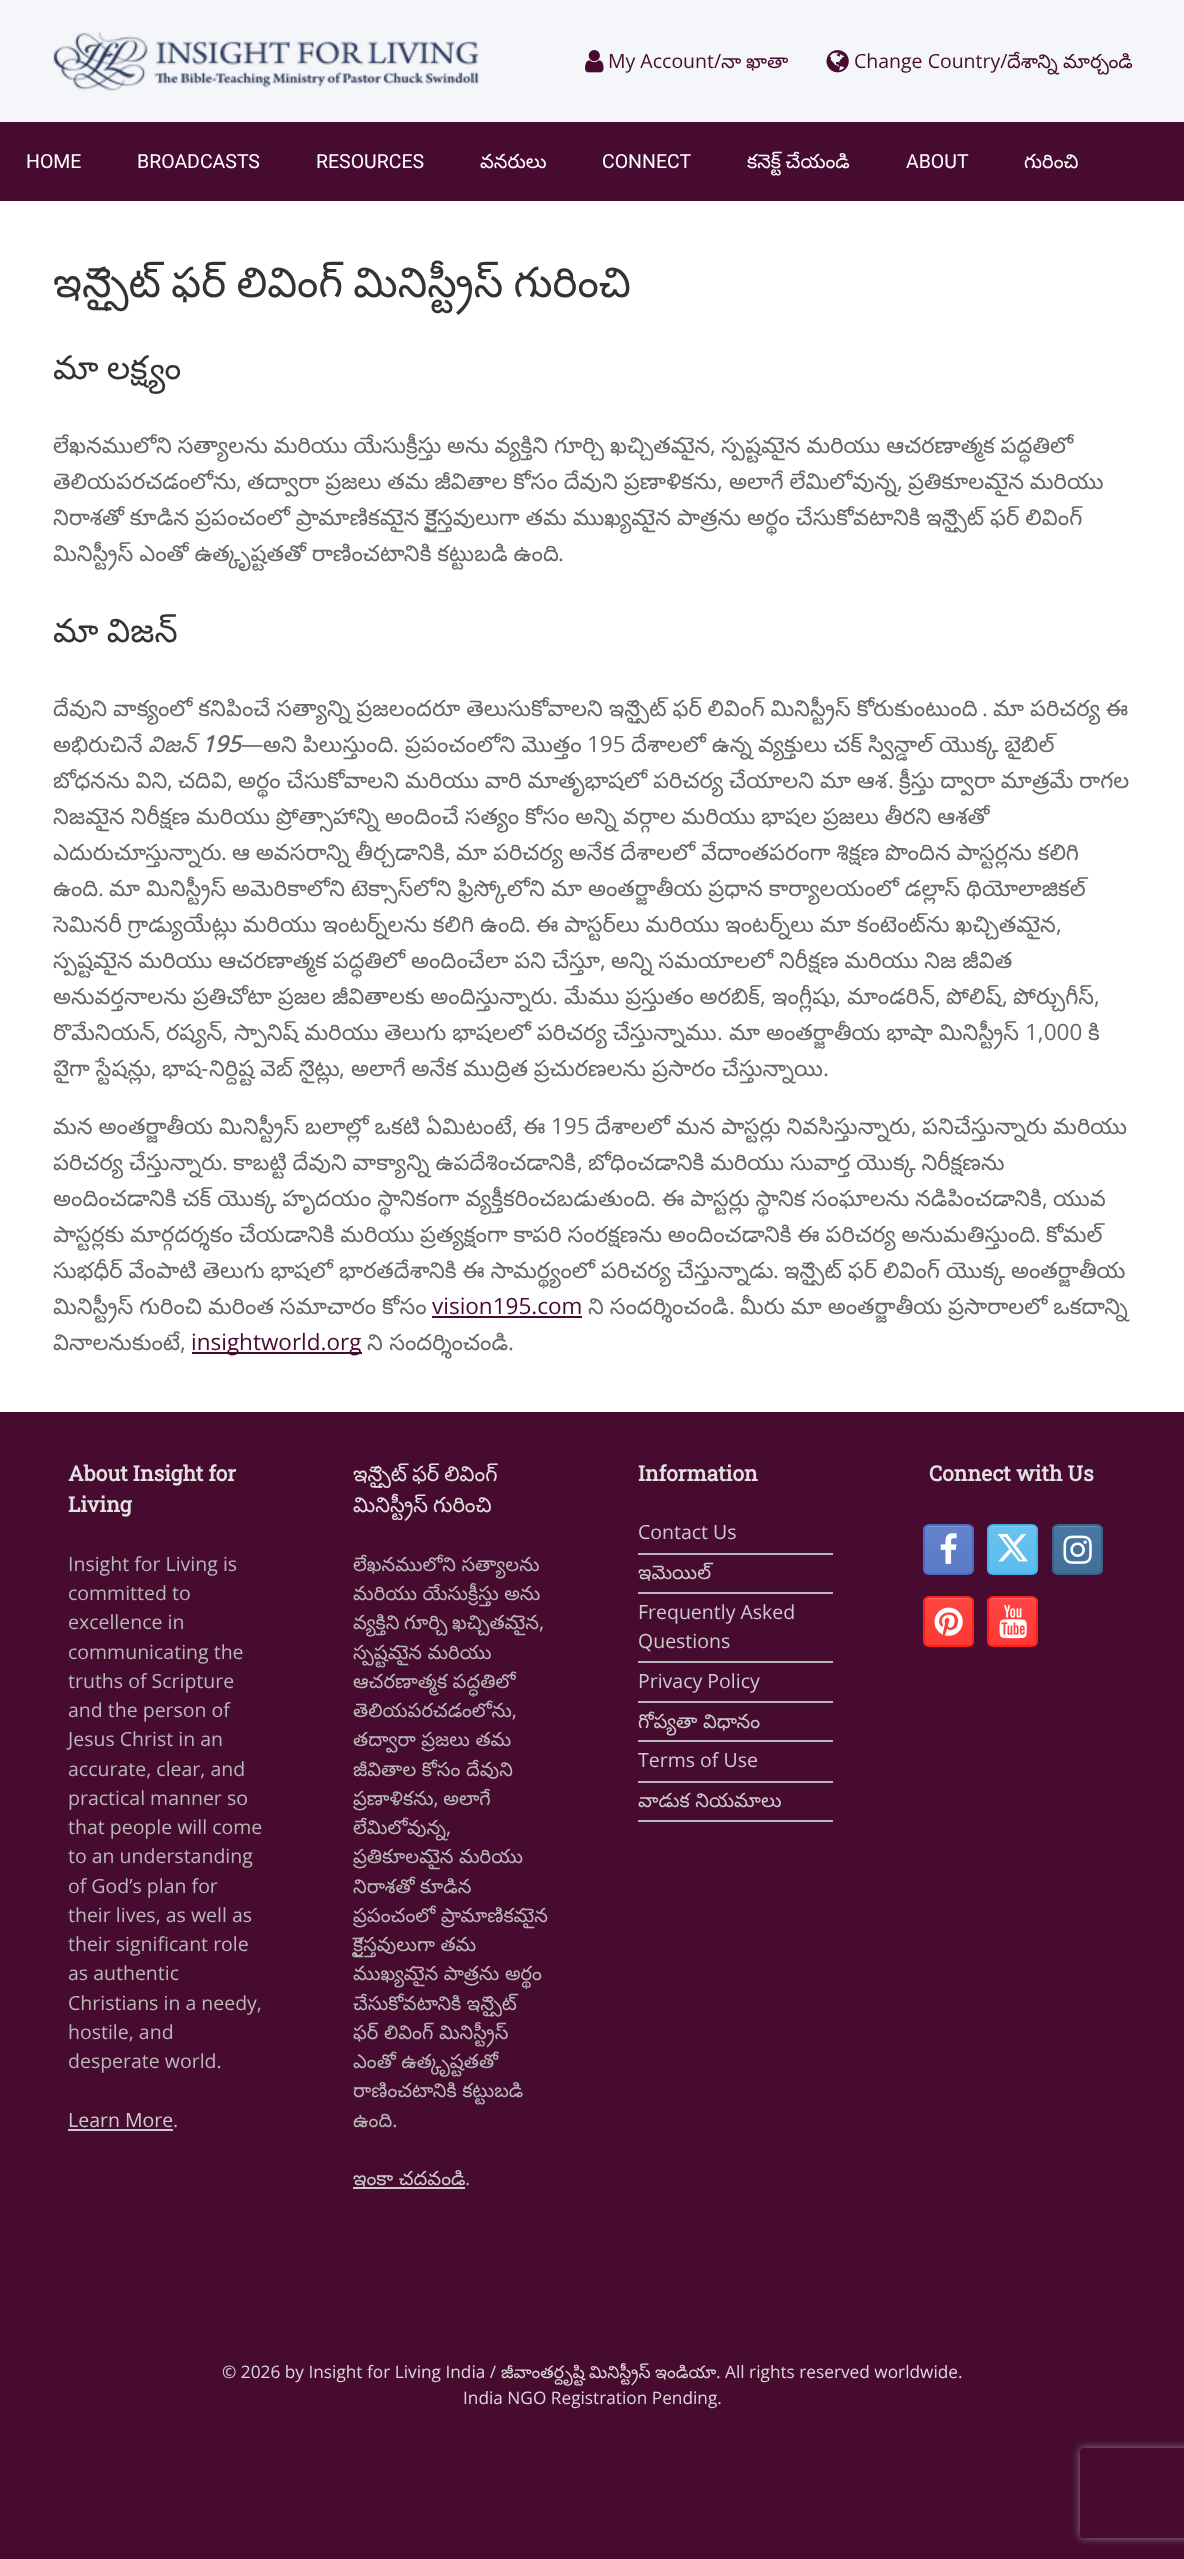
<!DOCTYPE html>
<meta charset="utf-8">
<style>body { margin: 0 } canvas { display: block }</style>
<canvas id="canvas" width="1184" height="2559"></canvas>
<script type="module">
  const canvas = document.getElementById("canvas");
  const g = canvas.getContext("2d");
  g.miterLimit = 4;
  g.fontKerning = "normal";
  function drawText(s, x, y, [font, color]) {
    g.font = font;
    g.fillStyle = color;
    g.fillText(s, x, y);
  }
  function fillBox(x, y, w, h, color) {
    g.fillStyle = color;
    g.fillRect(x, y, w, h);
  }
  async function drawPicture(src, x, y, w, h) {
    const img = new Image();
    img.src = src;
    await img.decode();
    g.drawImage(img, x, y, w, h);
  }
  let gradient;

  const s1 = ["19.5px Open Sans", "#460B2F"];
  const s2 = ["19.5px Noto Sans Telugu", "#460B2F"];
  const s3 = ["19.5px Roboto", "#FFFFFF"];
  const s4 = ["19.5px Noto Sans Telugu", "#FFFFFF"];
  const s5 = ["42px Noto Sans Telugu", "#343333"];
  const s6 = ["33px Noto Sans Telugu", "#343333"];
  const s7 = ["22.5px Noto Sans Telugu", "#666666"];
  const s8 = ["22.5px Open Sans", "#666666"];
  const s9 = ["italic 22.5px Noto Sans Telugu", "#666666"];
  const s10 = ["italic bold 22.5px Open Sans", "#666666"];
  const s11 = ["22.5px Open Sans", "#460B2F"];
  const s12 = ["bold 21px Roboto Slab", "#E2E2E2"];
  const s13 = ["19.5px Open Sans", "#B9B9B9"];
  const s14 = ["19.5px Open Sans", "#CCCCCC"];
  const s15 = ["21px Noto Sans Telugu", "#E2E2E2"];
  const s16 = ["19.5px Noto Sans Telugu", "#B9B9B9"];
  const s17 = ["19.5px Noto Sans Telugu", "#CCCCCC"];
  const s18 = ["17.25px Open Sans", "#DAD9D9"];
  const s19 = ["17.25px Noto Sans Telugu", "#DAD9D9"];

  fillBox(0, 0, 1184, 2559, "#460B2F");
  fillBox(0, 0, 1184, 122, "#F5F6F9");
  await drawPicture("pic1.png", 53, 32, 426, 59);
  await drawPicture("pic2.png", 585, 50, 19, 23);
  drawText("My Account/", 608, 68, s1);
  drawText("నా", 721, 68, s2);
  drawText("ఖాతా", 746, 68, s2);
  await drawPicture("pic3.png", 826, 50, 23, 23);
  drawText("Change Country/", 854, 68, s1);
  drawText("దేశాన్ని", 1007, 68, s2);
  drawText("మార్చండి", 1063, 68, s2);
  drawText("HOME", 26, 168, s3);
  drawText("BROADCASTS", 137, 168, s3);
  drawText("RESOURCES", 316, 168, s3);
  drawText("వనరులు", 480, 168, s4);
  drawText("CONNECT", 602, 168, s3);
  g.wordSpacing = "-1px";
  drawText("కనెక్ట్ చేయండి", 747, 168, s4);
  g.wordSpacing = "0px";
  drawText("ABOUT", 906, 168, s3);
  drawText("గురించి", 1024, 168, s4);
  fillBox(0, 201, 1184, 1211, "#FFFFFF");
  g.wordSpacing = "-1.5px";
  drawText("ఇన్సైట్ ఫర్ లివింగ్ మినిస్ట్రీస్ గురించి", 53, 297, s5);
  g.wordSpacing = "-1px";
  drawText("మా లక్ష్యం", 53, 379, s6);
  g.wordSpacing = "-0.5px";
  drawText("లేఖనములోని సత్యాలను మరియు యేసుక్రీస్తు అను వ్యక్తిని గూర్చి ఖచ్చితమైన", 53, 453, s7);
  g.wordSpacing = "0px";
  drawText(",", 710, 453, s8);
  g.wordSpacing = "-0.5px";
  drawText("స్పష్టమైన మరియు ఆచరణాత్మక పద్ధతిలో", 721, 453, s7);
  g.wordSpacing = "0px";
  drawText("తెలియపరచడంలోను", 53, 489, s7);
  drawText(",", 236, 489, s8);
  g.wordSpacing = "-0.5px";
  drawText("తద్వారా ప్రజలు తమ జీవితాల కోసం దేవుని ప్రణాళికను", 247, 489, s7);
  g.wordSpacing = "0px";
  drawText(",", 717, 489, s8);
  g.wordSpacing = "-0.5px";
  drawText("అలాగే లేమిలోవున్న", 729, 489, s7);
  g.wordSpacing = "0px";
  drawText(",", 897, 489, s8);
  g.wordSpacing = "-0.5px";
  drawText("ప్రతికూలమైన మరియు", 908, 489, s7);
  drawText("నిరాశతో కూడిన ప్రపంచంలో ప్రామాణికమైన క్రైస్తవులుగా తమ ముఖ్యమైన పాత్రను అర్థం చేసుకోవటానికి ఇన్సైట్ ఫర్ లివింగ్", 53, 525, s7);
  drawText("మినిస్ట్రీస్ ఎంతో ఉత్కృష్టతతో రాణించటానికి కట్టుబడి ఉంది", 53, 561, s7);
  g.wordSpacing = "0px";
  drawText(".", 558, 561, s8);
  g.wordSpacing = "-1px";
  drawText("మా విజన్", 53, 642, s6);
  g.wordSpacing = "-0.5px";
  drawText("దేవుని వాక్యంలో కనిపించే సత్యాన్ని ప్రజలందరూ తెలుసుకోవాలని ఇన్సైట్ ఫర్ లివింగ్ మినిస్ట్రీస్ కోరుకుంటుంది", 53, 716, s7);
  g.wordSpacing = "0px";
  drawText(".", 982, 716, s8);
  g.wordSpacing = "-0.5px";
  drawText("మా పరిచర్య ఈ", 993, 716, s7);
  g.wordSpacing = "0px";
  drawText("అభిరుచినే", 53, 752, s7);
  drawText("విజన్", 148, 752, s9);
  drawText("195", 202, 752, s10);
  drawText("—", 241, 752, s8);
  g.wordSpacing = "-0.5px";
  drawText("అని పిలుస్తుంది", 263, 752, s7);
  g.wordSpacing = "0px";
  drawText(".", 393, 752, s8);
  g.wordSpacing = "-0.5px";
  drawText("ప్రపంచంలోని మొత్తం", 405, 752, s7);
  g.wordSpacing = "0px";
  drawText("195", 587, 752, s8);
  g.wordSpacing = "-0.5px";
  drawText("దేశాలలో ఉన్న వ్యక్తులు చక్ స్విన్డాల్ యొక్క బైబిల్", 631, 752, s7);
  drawText("బోధనను విని", 53, 788, s7);
  g.wordSpacing = "0px";
  drawText(",", 167, 788, s8);
  drawText("చదివి", 178, 788, s7);
  drawText(",", 227, 788, s8);
  g.wordSpacing = "-0.5px";
  drawText("అర్థం చేసుకోవాలని మరియు వారి మాతృభాషలో పరిచర్య చేయాలని మా ఆశ", 238, 788, s7);
  g.wordSpacing = "0px";
  drawText(".", 888, 788, s8);
  g.wordSpacing = "-0.5px";
  drawText("క్రీస్తు ద్వారా మాత్రమే రాగల", 899, 788, s7);
  drawText("నిజమైన నిరీక్షణ మరియు ప్రోత్సాహాన్ని అందించే సత్యం కోసం అన్ని వర్గాల మరియు భాషల ప్రజలు తీరని ఆశతో", 53, 824, s7);
  g.wordSpacing = "0px";
  drawText("ఎదురుచూస్తున్నారు", 53, 860, s7);
  drawText(".", 221, 860, s8);
  g.wordSpacing = "-0.5px";
  drawText("ఆ అవసరాన్ని తీర్చడానికి", 232, 860, s7);
  g.wordSpacing = "0px";
  drawText(",", 445, 860, s8);
  g.wordSpacing = "-0.5px";
  drawText("మా పరిచర్య అనేక దేశాలలో వేదాంతపరంగా శిక్షణ పొందిన పాస్టర్లను కలిగి", 456, 860, s7);
  g.wordSpacing = "0px";
  drawText("ఉంది", 53, 896, s7);
  drawText(".", 98, 896, s8);
  g.wordSpacing = "-0.5px";
  drawText("మా మినిస్ట్రీస్ అమెరికాలోని టెక్సాస్‌లోని ఫ్రిస్కోలోని మా అంతర్జాతీయ ప్రధాన కార్యాలయంలో డల్లాస్ థియోలాజికల్", 109, 896, s7);
  drawText("సెమినరీ గ్రాడ్యుయేట్లు మరియు ఇంటర్న్‌లను కలిగి ఉంది", 53, 932, s7);
  g.wordSpacing = "0px";
  drawText(".", 525, 932, s8);
  g.wordSpacing = "-0.5px";
  drawText("ఈ పాస్టర్‌లు మరియు ఇంటర్న్‌లు మా కంటెంట్‌ను ఖచ్చితమైన", 536, 932, s7);
  g.wordSpacing = "0px";
  drawText(",", 1056, 932, s8);
  g.wordSpacing = "-0.5px";
  drawText("స్పష్టమైన మరియు ఆచరణాత్మక పద్ధతిలో అందించేలా పని చేస్తూ", 53, 968, s7);
  g.wordSpacing = "0px";
  drawText(",", 600, 968, s8);
  g.wordSpacing = "-0.5px";
  drawText("అన్ని సమయాలలో నిరీక్షణ మరియు నిజ జీవిత", 611, 968, s7);
  drawText("అనువర్తనాలను ప్రతిచోటా ప్రజల జీవితాలకు అందిస్తున్నారు", 53, 1004, s7);
  g.wordSpacing = "0px";
  drawText(".", 552, 1004, s8);
  g.wordSpacing = "-0.5px";
  drawText("మేము ప్రస్తుతం అరబిక్", 564, 1004, s7);
  g.wordSpacing = "0px";
  drawText(",", 760, 1004, s8);
  drawText("ఇంగ్లీషు", 772, 1004, s7);
  drawText(",", 835, 1004, s8);
  drawText("మాండరిన్", 847, 1004, s7);
  drawText(",", 935, 1004, s8);
  drawText("పోలిష్", 946, 1004, s7);
  drawText(",", 1002, 1004, s8);
  drawText("పోర్చుగీస్", 1013, 1004, s7);
  drawText(",", 1094, 1004, s8);
  drawText("రొమేనియన్", 53, 1040, s7);
  drawText(",", 155, 1040, s8);
  drawText("రష్యన్", 166, 1040, s7);
  drawText(",", 222, 1040, s8);
  g.wordSpacing = "-0.5px";
  drawText("స్పానిష్ మరియు తెలుగు భాషలలో పరిచర్య చేస్తున్నాము", 234, 1040, s7);
  g.wordSpacing = "0px";
  drawText(".", 717, 1040, s8);
  g.wordSpacing = "-0.5px";
  drawText("మా అంతర్జాతీయ భాషా మినిస్ట్రీస్", 729, 1040, s7);
  g.wordSpacing = "0px";
  drawText("1,000", 1025, 1040, s8);
  drawText("కి", 1088, 1040, s7);
  g.wordSpacing = "-0.5px";
  drawText("పైగా స్టేషన్లు", 53, 1076, s7);
  g.wordSpacing = "0px";
  drawText("భాష", 162, 1076, s7);
  drawText("-", 201, 1076, s8);
  g.wordSpacing = "-0.5px";
  drawText("నిర్దిష్ట వెబ్ సైట్లు", 209, 1076, s7);
  drawText("అలాగే అనేక ముద్రిత ప్రచురణలను ప్రసారం చేస్తున్నాయి", 351, 1076, s7);
  g.wordSpacing = "0px";
  drawText(",", 151, 1076, s8);
  drawText(",", 339, 1076, s8);
  drawText(".", 823, 1076, s8);
  g.wordSpacing = "-0.5px";
  drawText("మన అంతర్జాతీయ మినిస్ట్రీస్ బలాల్లో ఒకటి ఏమిటంటే", 53, 1134, s7);
  g.wordSpacing = "0px";
  drawText(",", 512, 1134, s8);
  drawText("ఈ", 523, 1134, s7);
  drawText("195", 551, 1134, s8);
  g.wordSpacing = "-0.5px";
  drawText("దేశాలలో మన పాస్టర్లు నివసిస్తున్నారు", 595, 1134, s7);
  g.wordSpacing = "0px";
  drawText(",", 911, 1134, s8);
  g.wordSpacing = "-0.5px";
  drawText("పనిచేస్తున్నారు మరియు", 922, 1134, s7);
  drawText("పరిచర్య చేస్తున్నారు", 53, 1170, s7);
  g.wordSpacing = "0px";
  drawText(".", 222, 1170, s8);
  g.wordSpacing = "-0.5px";
  drawText("కాబట్టి దేవుని వాక్యాన్ని ఉపదేశించడానికి", 233, 1170, s7);
  g.wordSpacing = "0px";
  drawText(",", 577, 1170, s8);
  g.wordSpacing = "-0.5px";
  drawText("బోధించడానికి మరియు సువార్త యొక్క నిరీక్షణను", 588, 1170, s7);
  drawText("అందించడానికి చక్ యొక్క హృదయం స్థానికంగా వ్యక్తీకరించబడుతుంది", 53, 1206, s7);
  g.wordSpacing = "0px";
  drawText(".", 650, 1206, s8);
  g.wordSpacing = "-0.5px";
  drawText("ఈ పాస్టర్లు స్థానిక సంఘాలను నడిపించడానికి", 662, 1206, s7);
  g.wordSpacing = "0px";
  drawText(",", 1042, 1206, s8);
  drawText("యువ", 1053, 1206, s7);
  g.wordSpacing = "-0.5px";
  drawText("పాస్టర్లకు మార్గదర్శకం చేయడానికి మరియు ప్రత్యక్షంగా కాపరి సంరక్షణను అందించడానికి ఈ పరిచర్య అనుమతిస్తుంది", 53, 1242, s7);
  g.wordSpacing = "0px";
  drawText(".", 1035, 1242, s8);
  drawText("కోమల్", 1046, 1242, s7);
  g.wordSpacing = "-0.5px";
  drawText("సుభధీర్ వేంపాటి తెలుగు భాషలో భారతదేశానికి ఈ సామర్థ్యంలో పరిచర్య చేస్తున్నాడు", 53, 1278, s7);
  g.wordSpacing = "0px";
  drawText(".", 773, 1278, s8);
  g.wordSpacing = "-0.5px";
  drawText("ఇన్సైట్ ఫర్ లివింగ్ యొక్క అంతర్జాతీయ", 784, 1278, s7);
  drawText("మినిస్ట్రీస్ గురించి మరింత సమాచారం కోసం", 53, 1314, s7);
  g.wordSpacing = "0px";
  drawText("vision195.com", 432, 1314, s11);
  fillBox(432, 1316, 150, 2, "#460B2F");
  g.wordSpacing = "-0.5px";
  drawText("ని సందర్శించండి", 588, 1314, s7);
  g.wordSpacing = "0px";
  drawText(".", 729, 1314, s8);
  g.wordSpacing = "-0.5px";
  drawText("మీరు మా అంతర్జాతీయ ప్రసారాలలో ఒకదాన్ని", 740, 1314, s7);
  g.wordSpacing = "0px";
  drawText("వినాలనుకుంటే", 53, 1350, s7);
  drawText(",", 180, 1350, s8);
  fillBox(192, 1352, 170, 2, "#460B2F");
  drawText("insightworld.org", 191, 1350, s11);
  drawText("ని సందర్శించండి", 367, 1350, s7);
  drawText(".", 508, 1350, s8);
  drawText("About Insight for", 68, 1481, s12);
  drawText("Living", 68, 1512, s12);
  drawText("Insight for Living is", 68, 1571, s13);
  drawText("committed to", 68, 1600, s13);
  drawText("excellence in", 68, 1629, s13);
  drawText("communicating the", 68, 1659, s13);
  drawText("truths of Scripture", 68, 1688, s13);
  drawText("and the person of", 68, 1717, s13);
  drawText("Jesus Christ in an", 68, 1746, s13);
  drawText("accurate, clear, and", 68, 1776, s13);
  drawText("practical manner so", 68, 1805, s13);
  drawText("that people will come", 68, 1834, s13);
  drawText("to an understanding", 68, 1863, s13);
  drawText("of God’s plan for", 68, 1893, s13);
  drawText("their lives, as well as", 68, 1922, s13);
  drawText("their significant role", 68, 1951, s13);
  drawText("as authentic", 68, 1980, s13);
  drawText("Christians in a needy,", 68, 2010, s13);
  drawText("hostile, and", 68, 2039, s13);
  drawText("desperate world.", 68, 2068, s13);
  drawText("Learn More", 68, 2127, s14);
  fillBox(68, 2129, 105, 2, "#CCCCCC");
  drawText(".", 173, 2127, s13);
  g.wordSpacing = "-1px";
  drawText("ఇన్సైట్ ఫర్ లివింగ్", 353, 1481, s15);
  drawText("మినిస్ట్రీస్ గురించి", 353, 1512, s15);
  g.wordSpacing = "0px";
  drawText("లేఖనములోని సత్యాలను", 353, 1571, s16);
  drawText("మరియు యేసుక్రీస్తు అను", 353, 1600, s16);
  g.wordSpacing = "-1px";
  drawText("వ్యక్తిని గూర్చి ఖచ్చితమైన,", 353, 1629, s16);
  g.wordSpacing = "0px";
  drawText("స్పష్టమైన మరియు", 353, 1659, s16);
  drawText("ఆచరణాత్మక పద్ధతిలో", 353, 1688, s16);
  drawText("తెలియపరచడంలోను,", 353, 1717, s16);
  drawText("తద్వారా ప్రజలు తమ", 353, 1746, s16);
  drawText("జీవితాల కోసం దేవుని", 353, 1776, s16);
  g.wordSpacing = "-1px";
  drawText("ప్రణాళికను, అలాగే", 353, 1805, s16);
  g.wordSpacing = "0px";
  drawText("లేమిలోవున్న,", 353, 1834, s16);
  drawText("ప్రతికూలమైన మరియు", 353, 1863, s16);
  drawText("నిరాశతో కూడిన", 353, 1893, s16);
  drawText("ప్రపంచంలో ప్రామాణికమైన", 353, 1922, s16);
  drawText("క్రైస్తవులుగా తమ", 353, 1951, s16);
  drawText("ముఖ్యమైన పాత్రను అర్థం", 353, 1980, s16);
  drawText("చేసుకోవటానికి ఇన్సైట్", 353, 2010, s16);
  drawText("ఫర్ లివింగ్ మినిస్ట్రీస్", 353, 2039, s16);
  drawText("ఎంతో ఉత్కృష్టతతో", 353, 2068, s16);
  drawText("రాణించటానికి కట్టుబడి", 353, 2097, s16);
  drawText("ఉంది.", 353, 2127, s16);
  drawText("ఇంకా చదవండి", 353, 2185, s17);
  fillBox(353, 2187, 112, 2, "#CCCCCC");
  drawText(".", 465, 2185, s13);
  drawText("Information", 638, 1481, s12);
  fillBox(638, 1553, 195, 2, "#B9B9B9");
  drawText("Contact Us", 638, 1539, s14);
  fillBox(638, 1592, 195, 2, "#B9B9B9");
  drawText("ఇమెయిల్", 638, 1579, s17);
  fillBox(638, 1661, 195, 2, "#B9B9B9");
  drawText("Frequently Asked", 638, 1619, s14);
  drawText("Questions", 638, 1648, s14);
  fillBox(638, 1701, 195, 2, "#B9B9B9");
  drawText("Privacy Policy", 638, 1688, s14);
  fillBox(638, 1740, 195, 2, "#B9B9B9");
  drawText("గోప్యతా విధానం", 638, 1728, s17);
  fillBox(638, 1781, 195, 2, "#B9B9B9");
  drawText("Terms of Use", 638, 1767, s14);
  fillBox(638, 1820, 195, 2, "#B9B9B9");
  drawText("వాడుక నియమాలు", 638, 1807, s17);
  drawText("Connect with Us", 929, 1481, s12);
  g.save();
  g.beginPath();
  g.roundRect(923, 1524, 51, 51, 6);
  g.clip();
  gradient = g.createLinearGradient(948, 1574, 948, 1526);
  gradient.addColorStop(0, "#597AC7");
  gradient.addColorStop(1, "#6483CB");
  g.fillStyle = gradient;
  g.fillRect(923, 1526, 51, 48);
  g.restore();
  g.fillStyle = "#839CD5";
  g.beginPath();
  g.moveTo(928, 1527);
  g.lineTo(968, 1527);
  g.bezierCurveTo(970, 1527, 972, 1529, 972, 1532);
  g.bezierCurveTo(972, 1525, 966, 1526, 961, 1526);
  g.lineTo(935, 1526);
  g.bezierCurveTo(930, 1526, 924, 1525, 924, 1532);
  g.bezierCurveTo(924, 1529, 926, 1527, 928, 1527);
  g.closePath();
  g.fill();
  g.beginPath();
  g.roundRect(924, 1525, 49, 49, 5);
  g.strokeStyle = "#466BC1";
  g.lineWidth = 2;
  g.stroke();
  await drawPicture("pic4.png", 940, 1533, 17, 31);
  g.save();
  g.beginPath();
  g.roundRect(987, 1524, 51, 51, 6);
  g.clip();
  gradient = g.createLinearGradient(1013, 1574, 1013, 1526);
  gradient.addColorStop(0, "#5BBCEC");
  gradient.addColorStop(1, "#69C2EE");
  g.fillStyle = gradient;
  g.fillRect(987, 1526, 51, 48);
  g.restore();
  g.fillStyle = "rgba(255, 255, 255, 0.2)";
  g.beginPath();
  g.moveTo(993, 1527);
  g.lineTo(1032, 1527);
  g.bezierCurveTo(1034, 1527, 1036, 1529, 1036, 1532);
  g.lineTo(1036, 1570);
  g.lineTo(1035, 1573);
  g.bezierCurveTo(1036, 1572, 1037, 1570, 1037, 1569);
  g.lineTo(1037, 1531);
  g.bezierCurveTo(1037, 1528, 1035, 1526, 1032, 1526);
  g.lineTo(994, 1526);
  g.bezierCurveTo(992, 1526, 991, 1527, 990, 1528);
  g.closePath();
  g.fill();
  g.beginPath();
  g.roundRect(988, 1525, 49, 49, 5);
  g.strokeStyle = "#44B3E9";
  g.stroke();
  await drawPicture("pic5.png", 997, 1534, 31, 28);
  g.save();
  g.beginPath();
  g.roundRect(1052, 1524, 51, 51, 6);
  g.clip();
  gradient = g.createLinearGradient(1077, 1574, 1077, 1526);
  gradient.addColorStop(0, "#426F98");
  gradient.addColorStop(1, "#4777A3");
  g.fillStyle = gradient;
  g.fillRect(1052, 1526, 51, 48);
  g.restore();
  g.fillStyle = "#6C92B5";
  g.beginPath();
  g.moveTo(1058, 1527);
  g.lineTo(1096, 1527);
  g.bezierCurveTo(1099, 1527, 1101, 1529, 1101, 1532);
  g.bezierCurveTo(1101, 1525, 1095, 1526, 1090, 1526);
  g.lineTo(1064, 1526);
  g.bezierCurveTo(1059, 1526, 1053, 1525, 1053, 1532);
  g.bezierCurveTo(1053, 1529, 1055, 1527, 1058, 1527);
  g.closePath();
  g.fill();
  g.beginPath();
  g.roundRect(1053, 1525, 49, 49, 5);
  g.strokeStyle = "#3A6286";
  g.stroke();
  await drawPicture("pic6.png", 1063, 1535, 29, 29);
  g.save();
  g.beginPath();
  g.roundRect(923, 1596, 51, 51, 6);
  g.clip();
  gradient = g.createLinearGradient(948, 1646, 948, 1598);
  gradient.addColorStop(0, "#FD3832");
  gradient.addColorStop(1, "#FD4741");
  g.fillStyle = gradient;
  g.fillRect(923, 1598, 51, 48);
  g.restore();
  g.fillStyle = "#FD6C67";
  g.beginPath();
  g.moveTo(928, 1599);
  g.lineTo(968, 1599);
  g.bezierCurveTo(970, 1599, 972, 1601, 972, 1604);
  g.bezierCurveTo(972, 1597, 966, 1598, 961, 1598);
  g.lineTo(935, 1598);
  g.bezierCurveTo(930, 1598, 924, 1597, 924, 1604);
  g.bezierCurveTo(924, 1601, 926, 1599, 928, 1599);
  g.closePath();
  g.fill();
  g.beginPath();
  g.roundRect(924, 1597, 49, 49, 5);
  g.strokeStyle = "#FD1F19";
  g.stroke();
  await drawPicture("pic7.png", 934, 1607, 29, 29);
  g.save();
  g.beginPath();
  g.roundRect(987, 1596, 51, 51, 6);
  g.clip();
  gradient = g.createLinearGradient(1013, 1646, 1013, 1598);
  gradient.addColorStop(0, "#FF3635");
  gradient.addColorStop(1, "#FF4544");
  g.fillStyle = gradient;
  g.fillRect(987, 1598, 51, 48);
  g.restore();
  g.fillStyle = "rgba(255, 255, 255, 0.2)";
  g.beginPath();
  g.moveTo(993, 1599);
  g.lineTo(1032, 1599);
  g.bezierCurveTo(1034, 1599, 1036, 1601, 1036, 1604);
  g.lineTo(1036, 1642);
  g.lineTo(1035, 1645);
  g.bezierCurveTo(1036, 1644, 1037, 1642, 1037, 1641);
  g.lineTo(1037, 1603);
  g.bezierCurveTo(1037, 1600, 1035, 1598, 1032, 1598);
  g.lineTo(994, 1598);
  g.bezierCurveTo(992, 1598, 991, 1599, 990, 1600);
  g.closePath();
  g.fill();
  g.beginPath();
  g.roundRect(988, 1597, 49, 49, 5);
  g.strokeStyle = "#FF1D1B";
  g.stroke();
  await drawPicture("pic8.png", 999, 1605, 28, 34);
  drawText("© 2026 by Insight for Living India /", 222, 2378, s18);
  drawText("జీవాంతర్దృష్టి", 501, 2378, s19);
  drawText("మినిస్ట్రీస్", 589, 2378, s19);
  drawText("ఇండియా", 655, 2378, s19);
  drawText(". All rights reserved worldwide.", 716, 2378, s18);
  drawText("India NGO Registration Pending.", 463, 2404, s18);
  g.save();
  g.beginPath();
  g.moveTo(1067, 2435);
  g.lineTo(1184, 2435);
  g.lineTo(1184, 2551);
  g.lineTo(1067, 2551);
  g.closePath();
  g.moveTo(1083, 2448);
  g.lineTo(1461, 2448);
  g.bezierCurveTo(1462.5, 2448, 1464, 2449.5, 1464, 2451);
  g.lineTo(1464, 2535);
  g.bezierCurveTo(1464, 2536.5, 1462.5, 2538, 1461, 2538);
  g.lineTo(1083, 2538);
  g.bezierCurveTo(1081.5, 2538, 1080, 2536.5, 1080, 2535);
  g.lineTo(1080, 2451);
  g.bezierCurveTo(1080, 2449.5, 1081.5, 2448, 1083, 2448);
  g.closePath();
  g.clip("evenodd");
  g.fillStyle = "#808080";
  g.filter = "blur(4px)";
  g.beginPath();
  g.roundRect(1080, 2448, 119, 90, 3);
  g.fill();
  g.filter = "none";
  g.restore();
</script>
